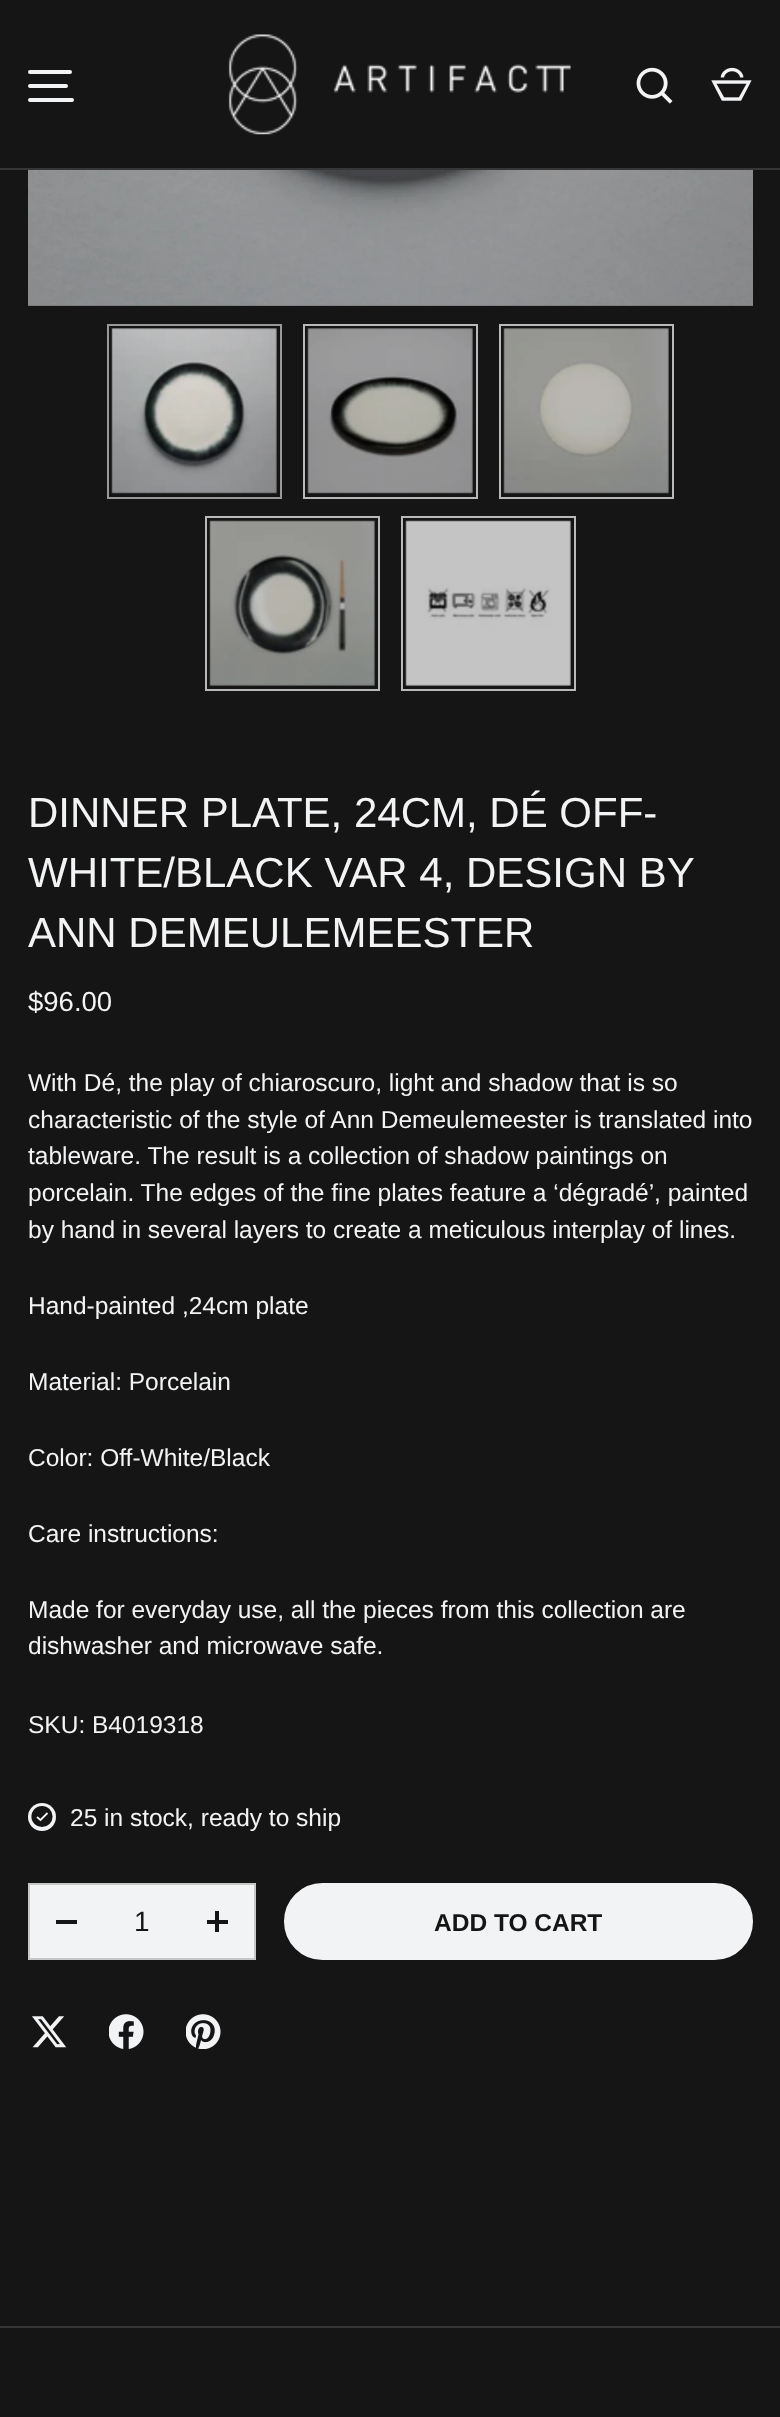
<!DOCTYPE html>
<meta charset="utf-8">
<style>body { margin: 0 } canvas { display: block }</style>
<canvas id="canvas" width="780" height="2417"></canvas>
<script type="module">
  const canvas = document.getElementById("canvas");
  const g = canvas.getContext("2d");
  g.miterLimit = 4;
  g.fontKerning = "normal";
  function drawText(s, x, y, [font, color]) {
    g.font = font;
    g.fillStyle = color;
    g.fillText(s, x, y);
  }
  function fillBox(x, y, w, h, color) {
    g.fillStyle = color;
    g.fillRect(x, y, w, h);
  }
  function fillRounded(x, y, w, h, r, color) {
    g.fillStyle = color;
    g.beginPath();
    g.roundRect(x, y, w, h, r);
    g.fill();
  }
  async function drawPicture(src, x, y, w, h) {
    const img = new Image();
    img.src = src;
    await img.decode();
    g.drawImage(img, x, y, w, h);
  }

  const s1 = ["42px Liberation Sans", "#F2F3F4"];
  const s2 = ["27.5px Liberation Sans", "#F2F3F4"];
  const s3 = ["24.5px Liberation Sans", "#F2F3F4"];
  const s4 = ["28px Liberation Sans", "#161515"];
  const s5 = ["bold 24.5px Liberation Sans", "#161515"];

  fillBox(0, 0, 780, 2417, "#161515");
  fillRounded(28, 70, 44, 4, 2, "#F2F3F4");
  fillRounded(28, 84, 40, 4, 2, "#F2F3F4");
  fillRounded(28, 98, 46, 4, 2, "#F2F3F4");
  await drawPicture("pic1.png", 228, 34, 343, 101);
  await drawPicture("pic2.png", 636, 67, 37, 37);
  await drawPicture("pic3.png", 711, 67, 41, 34);
  fillBox(0, 168, 780, 2, "#373636");
  await drawPicture("pic4.png", 28, 170, 725, 136);
  g.strokeStyle = "#999999";
  g.lineWidth = 2;
  g.strokeRect(108, 325, 173, 173);
  await drawPicture("pic5.png", 111, 328, 166, 166);
  g.strokeStyle = "#B9B9B9";
  g.strokeRect(304, 325, 173, 173);
  await drawPicture("pic6.png", 307, 328, 166, 166);
  g.strokeRect(500, 325, 173, 173);
  await drawPicture("pic7.png", 503, 328, 166, 166);
  g.strokeRect(206, 517, 173, 173);
  await drawPicture("pic8.png", 209, 520, 166, 166);
  g.strokeRect(402, 517, 173, 173);
  await drawPicture("pic9.png", 405, 520, 166, 166);
  drawText("DINNER PLATE, 24CM, DÉ OFF-", 28, 827, s1);
  drawText("WHITE/BLACK VAR 4, DESIGN BY", 28, 887, s1);
  drawText("ANN DEMEULEMEESTER", 28, 947, s1);
  drawText("$96.00", 28, 1011, s2);
  drawText("With Dé, the play of chiaroscuro, light and shadow that is so", 28, 1091, s3);
  drawText("characteristic of the style of Ann Demeulemeester is translated into", 28, 1128, s3);
  drawText("tableware. The result is a collection of shadow paintings on", 28, 1164, s3);
  drawText("porcelain. The edges of the fine plates feature a ‘dégradé’, painted", 28, 1201, s3);
  drawText("by hand in several layers to create a meticulous interplay of lines.", 28, 1238, s3);
  drawText("Hand-painted ,24cm plate", 28, 1314, s3);
  drawText("Material: Porcelain", 28, 1390, s3);
  drawText("Color: Off-White/Black", 28, 1466, s3);
  drawText("Care instructions:", 28, 1542, s3);
  drawText("Made for everyday use, all the pieces from this collection are", 28, 1618, s3);
  drawText("dishwasher and microwave safe.", 28, 1654, s3);
  drawText("SKU: B4019318", 28, 1733, s3);
  g.beginPath();
  g.arc(42, 1817, 14, 0, Math.PI * 2);
  g.fill();
  g.fillStyle = "#161515";
  g.beginPath();
  g.arc(42, 1816.5, 11.5, 0, Math.PI * 2);
  g.fill();
  g.strokeStyle = "#F2F3F4";
  g.lineWidth = 1.8;
  g.stroke();
  g.beginPath();
  g.moveTo(47.5, 1813);
  g.lineTo(40.5, 1820);
  g.lineTo(37, 1817);
  g.stroke();
  drawText("25 in stock, ready to ship", 70, 1826, s3);
  g.beginPath();
  g.rect(29, 1884, 226, 75);
  g.fill();
  g.strokeStyle = "#C6C7C7";
  g.lineWidth = 2;
  g.stroke();
  fillBox(56, 1920, 21, 4, "#161515");
  drawText("1", 134, 1931, s4);
  fillBox(207, 1920, 21, 4, "#161515");
  fillBox(215, 1911, 4, 21, "#161515");
  g.fillStyle = "#F2F3F4";
  g.beginPath();
  g.roundRect(285, 1884, 467, 75, 37.5);
  g.fill();
  g.strokeStyle = "#F2F3F4";
  g.stroke();
  drawText("ADD TO CART", 434, 1931, s5);
  await drawPicture("pic10.png", 32, 2016, 35, 32);
  await drawPicture("pic11.png", 109, 2014, 35, 35);
  await drawPicture("pic12.png", 186, 2014, 35, 35);
  fillBox(0, 2326, 780, 2, "#373636");
</script>
